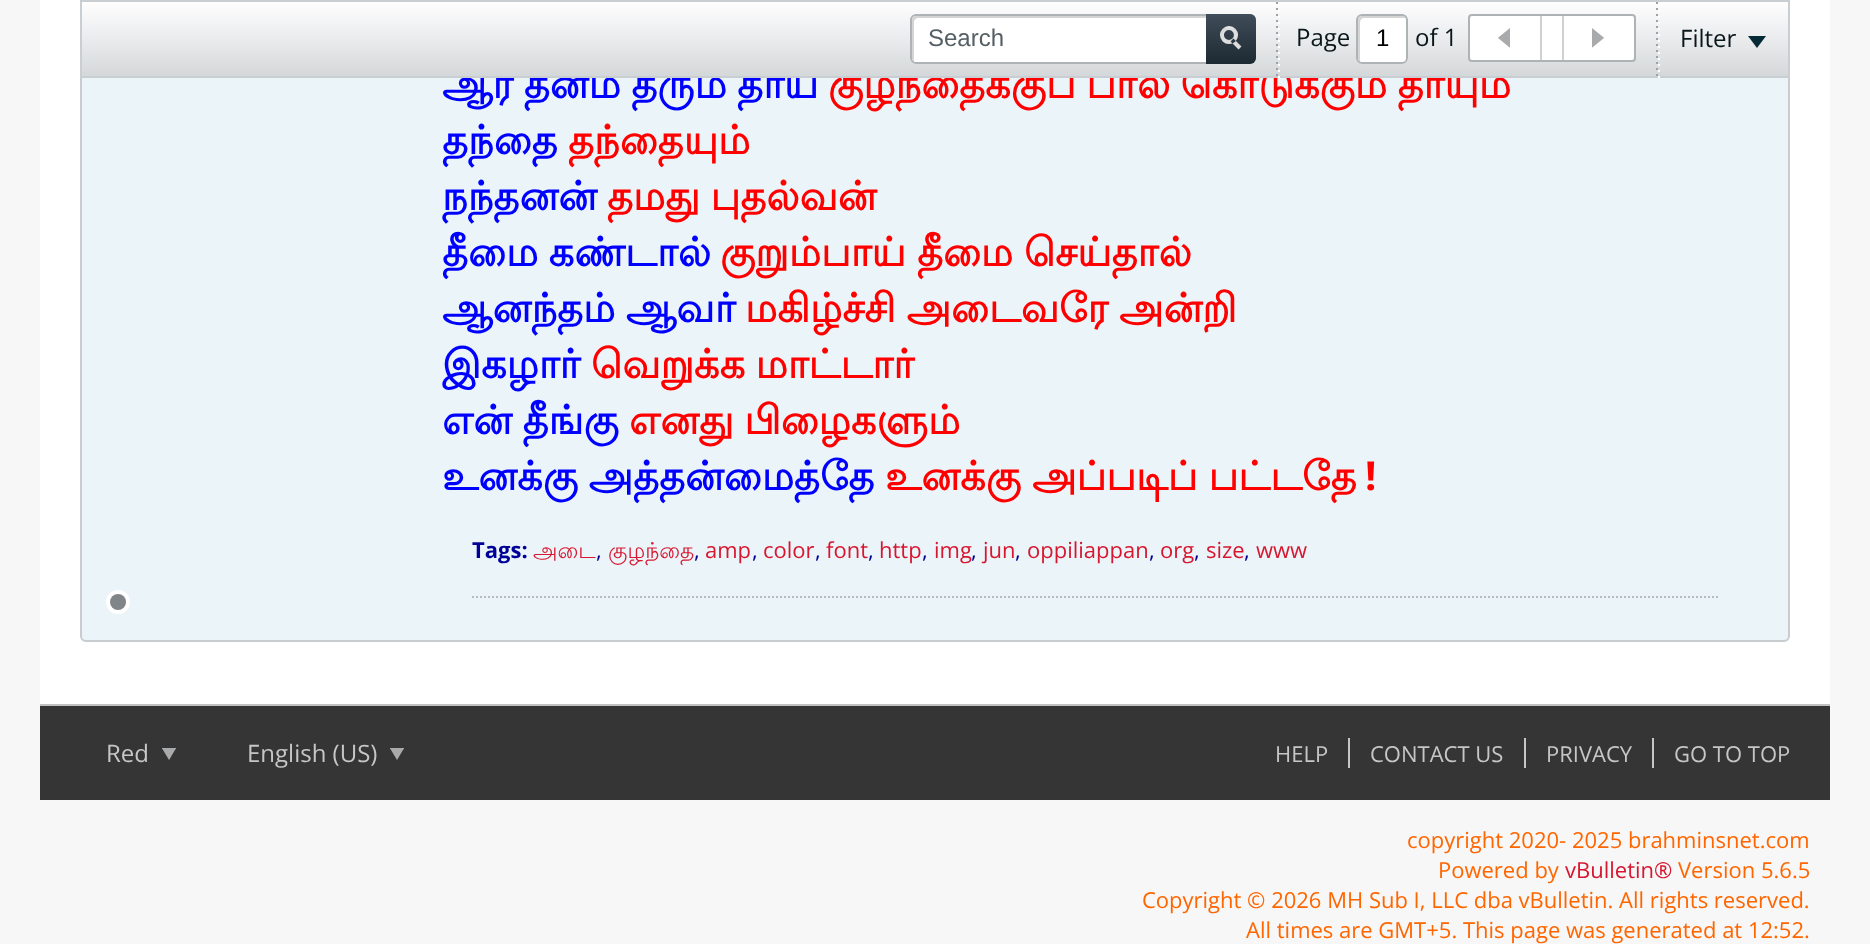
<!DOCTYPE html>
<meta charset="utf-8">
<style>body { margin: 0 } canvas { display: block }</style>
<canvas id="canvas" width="1870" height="944"></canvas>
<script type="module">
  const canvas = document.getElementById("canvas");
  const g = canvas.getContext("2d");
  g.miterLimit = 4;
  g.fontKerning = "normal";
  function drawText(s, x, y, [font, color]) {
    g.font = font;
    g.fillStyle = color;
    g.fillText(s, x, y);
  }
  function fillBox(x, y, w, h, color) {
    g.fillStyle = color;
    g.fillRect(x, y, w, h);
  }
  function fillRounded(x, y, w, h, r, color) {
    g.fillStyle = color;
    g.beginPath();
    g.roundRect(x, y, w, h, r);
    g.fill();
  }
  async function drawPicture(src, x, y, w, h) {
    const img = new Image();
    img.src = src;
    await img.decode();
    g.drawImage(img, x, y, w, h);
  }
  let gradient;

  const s1 = ["bold 40px Lohit Tamil", "#0000FF"];
  const s2 = ["bold 40px Lohit Tamil", "#FF0000"];
  const s3 = ["24px Liberation Sans", "#556065"];
  const s4 = ["24px Open Sans", "#09161B"];
  const s5 = ["24px Liberation Sans", "#000000"];
  const s6 = ["bold 40px Open Sans", "#FF0000"];
  const s7 = ["bold 22px Open Sans", "#000099"];
  const s8 = ["22px Lohit Tamil", "#D71730"];
  const s9 = ["22px Open Sans", "#000099"];
  const s10 = ["22px Open Sans", "#D71730"];
  const s11 = ["24px Open Sans", "#C6C6C6"];
  const s12 = ["22px Open Sans", "#C6C6C6"];
  const s13 = ["22px Open Sans", "#FF6600"];

  fillBox(0, 0, 1870, 944, "#F7F7F7");
  fillBox(40, 0, 1790, 704, "#FFFFFF");
  g.fillStyle = "#EBF4F9";
  g.beginPath();
  g.roundRect(81, -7, 1708, 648, 5);
  g.fill();
  g.strokeStyle = "#C8CCCE";
  g.lineWidth = 2;
  g.stroke();
  g.wordSpacing = "-1.5px";
  drawText("ஆர தனம் தரும் தாய்", 442, 98, s1);
  drawText("குழந்தைக்குப் பால் கொடுக்கும் தாயும்", 828, 98, s2);
  gradient = g.createLinearGradient(935, 2, 935, 76);
  gradient.addColorStop(0, "#FEFEFF");
  gradient.addColorStop(1, "#D5D8DA");
  g.fillStyle = gradient;
  g.fillRect(82, 2, 1706, 74);
  g.strokeStyle = "#C9CED2";
  g.strokeRect(81, 1, 1708, 76);
  fillRounded(910, 14, 346, 50, 6, "#FFFFFF");
  g.fillStyle = "#D5D5D5";
  g.beginPath();
  g.moveTo(918, 18);
  g.lineTo(1252, 18);
  g.lineTo(1254, 18);
  g.bezierCurveTo(1253, 17, 1252, 16, 1250, 16);
  g.lineTo(916, 16);
  g.bezierCurveTo(914, 16, 912, 18, 912, 20);
  g.lineTo(912, 58);
  g.bezierCurveTo(912, 60, 913, 61, 914, 62);
  g.lineTo(914, 60);
  g.lineTo(914, 22);
  g.bezierCurveTo(914, 20, 916, 18, 918, 18);
  g.closePath();
  g.fill();
  g.beginPath();
  g.roundRect(911, 15, 344, 48, 5);
  g.strokeStyle = "#AEB3B6";
  g.stroke();
  g.wordSpacing = "0px";
  drawText("Search", 928, 46, s3);
  gradient = g.createLinearGradient(1231, 14, 1231, 64);
  gradient.addColorStop(0, "#404D5A");
  gradient.addColorStop(1, "#1C2931");
  g.fillStyle = gradient;
  g.beginPath();
  g.roundRect(1206, 14, 50, 50, [0, 6, 6, 0]);
  g.fill();
  await drawPicture("pic1.png", 1220, 26, 22, 24);
  fillBox(1276, 2, 2, 2, "#9BA3A9");
  fillBox(1276, 8, 2, 2, "#9BA3A9");
  fillBox(1276, 14, 2, 2, "#9BA3A9");
  fillBox(1276, 20, 2, 2, "#9BA3A9");
  fillBox(1276, 26, 2, 2, "#9BA3A9");
  fillBox(1276, 32, 2, 2, "#9BA3A9");
  fillBox(1276, 38, 2, 2, "#9BA3A9");
  fillBox(1276, 44, 2, 2, "#9BA3A9");
  fillBox(1276, 50, 2, 2, "#9BA3A9");
  fillBox(1276, 56, 2, 2, "#9BA3A9");
  fillBox(1276, 62, 2, 2, "#9BA3A9");
  fillBox(1276, 68, 2, 2, "#9BA3A9");
  fillBox(1276, 74, 2, 2, "#9BA3A9");
  fillBox(1278, 5, 2, 1, "#FFFFFF");
  fillBox(1278, 10, 2, 2, "#FFFFFF");
  fillBox(1278, 16, 2, 2, "#FFFFFF");
  fillBox(1278, 22, 2, 2, "#FFFFFF");
  fillBox(1278, 28, 2, 2, "#FFFFFF");
  fillBox(1278, 34, 2, 2, "#FFFFFF");
  fillBox(1278, 40, 2, 2, "#FFFFFF");
  fillBox(1278, 46, 2, 2, "#FFFFFF");
  fillBox(1278, 52, 2, 2, "#FFFFFF");
  fillBox(1278, 58, 2, 2, "#FFFFFF");
  fillBox(1278, 64, 2, 2, "#FFFFFF");
  fillBox(1278, 70, 2, 2, "#FFFFFF");
  fillBox(1278, 76, 2, 2, "#FFFFFF");
  drawText("Page", 1296, 46, s4);
  fillRounded(1356, 14, 52, 50, 6, "#FFFFFF");
  g.fillStyle = "#D5D5D5";
  g.beginPath();
  g.moveTo(1364, 18);
  g.lineTo(1404, 18);
  g.lineTo(1406, 18);
  g.bezierCurveTo(1405, 17, 1404, 16, 1402, 16);
  g.lineTo(1362, 16);
  g.bezierCurveTo(1360, 16, 1358, 18, 1358, 20);
  g.lineTo(1358, 58);
  g.bezierCurveTo(1358, 60, 1359, 61, 1360, 62);
  g.lineTo(1360, 60);
  g.lineTo(1360, 22);
  g.bezierCurveTo(1360, 20, 1362, 18, 1364, 18);
  g.closePath();
  g.fill();
  g.beginPath();
  g.roundRect(1357, 15, 50, 48, 5);
  g.stroke();
  drawText("1", 1376, 46, s5);
  drawText("of 1", 1415, 46, s4);
  g.fillStyle = "#FFFFFF";
  g.beginPath();
  g.roundRect(1469, 15, 166, 46, 3);
  g.fill();
  g.stroke();
  fillBox(1540, 16, 2, 44, "#CDD1D4");
  await drawPicture("pic2.png", 1498, 28, 12, 20);
  fillBox(1562, 16, 2, 44, "#CDD1D4");
  await drawPicture("pic3.png", 1592, 28, 12, 20);
  fillBox(1656, 2, 2, 2, "#9BA3A9");
  fillBox(1656, 8, 2, 2, "#9BA3A9");
  fillBox(1656, 14, 2, 2, "#9BA3A9");
  fillBox(1656, 20, 2, 2, "#9BA3A9");
  fillBox(1656, 26, 2, 2, "#9BA3A9");
  fillBox(1656, 32, 2, 2, "#9BA3A9");
  fillBox(1656, 38, 2, 2, "#9BA3A9");
  fillBox(1656, 44, 2, 2, "#9BA3A9");
  fillBox(1656, 50, 2, 2, "#9BA3A9");
  fillBox(1656, 56, 2, 2, "#9BA3A9");
  fillBox(1656, 62, 2, 2, "#9BA3A9");
  fillBox(1656, 68, 2, 2, "#9BA3A9");
  fillBox(1656, 74, 2, 2, "#9BA3A9");
  fillBox(1658, 5, 2, 1, "#FFFFFF");
  fillBox(1658, 10, 2, 2, "#FFFFFF");
  fillBox(1658, 16, 2, 2, "#FFFFFF");
  fillBox(1658, 22, 2, 2, "#FFFFFF");
  fillBox(1658, 28, 2, 2, "#FFFFFF");
  fillBox(1658, 34, 2, 2, "#FFFFFF");
  fillBox(1658, 40, 2, 2, "#FFFFFF");
  fillBox(1658, 46, 2, 2, "#FFFFFF");
  fillBox(1658, 52, 2, 2, "#FFFFFF");
  fillBox(1658, 58, 2, 2, "#FFFFFF");
  fillBox(1658, 64, 2, 2, "#FFFFFF");
  fillBox(1658, 70, 2, 2, "#FFFFFF");
  fillBox(1658, 76, 2, 2, "#FFFFFF");
  drawText("Filter", 1680, 47, s4);
  await drawPicture("pic4.png", 1748, 36, 18, 12);
  drawText("தந்தை", 442, 154, s1);
  drawText("தந்தையும்", 568, 154, s2);
  drawText("நந்தனன்", 442, 210, s1);
  g.wordSpacing = "-1.5px";
  drawText("தமது புதல்வன்", 607, 210, s2);
  drawText("தீமை கண்டால்", 442, 266, s1);
  g.wordSpacing = "-1px";
  drawText("குறும்பாய் தீமை செய்தால்", 720, 266, s2);
  g.wordSpacing = "-1.5px";
  drawText("ஆனந்தம் ஆவர்", 442, 322, s1);
  g.wordSpacing = "-1px";
  drawText("மகிழ்ச்சி அடைவரே அன்றி", 745, 322, s2);
  g.wordSpacing = "0px";
  drawText("இகழார்", 442, 378, s1);
  g.wordSpacing = "-1.5px";
  drawText("வெறுக்க மாட்டார்", 591, 378, s2);
  drawText("என் தீங்கு", 442, 434, s1);
  drawText("எனது பிழைகளும்", 629, 434, s2);
  drawText("உனக்கு அத்தன்மைத்தே", 442, 490, s1);
  g.wordSpacing = "-1px";
  drawText("உனக்கு அப்படிப் பட்டதே", 885, 490, s2);
  g.wordSpacing = "0px";
  drawText("!", 1365, 490, s6);
  drawText("Tags:", 472, 558, s7);
  drawText("அடை", 533, 558, s8);
  drawText(",", 596, 558, s9);
  drawText("குழந்தை", 608, 558, s8);
  drawText(",", 694, 558, s9);
  drawText("amp", 705, 558, s10);
  drawText(",", 752, 558, s9);
  drawText("color", 763, 558, s10);
  drawText(",", 815, 558, s9);
  drawText("font", 826, 558, s10);
  drawText(",", 868, 558, s9);
  drawText("http", 879, 558, s10);
  drawText(",", 922, 558, s9);
  drawText("img", 934, 558, s10);
  drawText(",", 971, 558, s9);
  drawText("jun", 983, 558, s10);
  drawText(",", 1015, 558, s9);
  drawText("oppiliappan", 1027, 558, s10);
  drawText(",", 1149, 558, s9);
  drawText("org", 1160, 558, s10);
  drawText(",", 1194, 558, s9);
  drawText("size", 1206, 558, s10);
  drawText(",", 1244, 558, s9);
  drawText("www", 1256, 558, s10);
  g.beginPath();
  g.moveTo(472, 597);
  g.lineTo(1718, 597);
  g.strokeStyle = "#B7BCBE";
  g.setLineDash([2, 2]);
  g.stroke();
  await drawPicture("pic5.png", 106, 590, 24, 24);
  fillBox(40, 706, 1790, 94, "#353535");
  fillBox(40, 704, 1790, 2, "#C2C2C2");
  drawText("Red", 106, 762, s11);
  await drawPicture("pic6.png", 162, 748, 14, 12);
  drawText("English (US)", 247, 762, s11);
  await drawPicture("pic6.png", 390, 748, 14, 12);
  drawText("HELP", 1275, 762, s12);
  drawText("CONTACT US", 1370, 762, s12);
  fillBox(1348, 738, 2, 30, "#C6C6C6");
  drawText("PRIVACY", 1546, 762, s12);
  fillBox(1524, 738, 2, 30, "#C6C6C6");
  drawText("GO TO TOP", 1674, 762, s12);
  fillBox(1652, 738, 2, 30, "#C6C6C6");
  drawText("copyright 2020- 2025 brahminsnet.com", 1407, 848, s13);
  drawText("Powered by", 1438, 878, s13);
  drawText("vBulletin®", 1565, 878, s10);
  drawText("Version 5.6.5", 1678, 878, s13);
  drawText("Copyright © 2026 MH Sub I, LLC dba vBulletin. All rights reserved.", 1142, 908, s13);
  drawText("All times are GMT+5. This page was generated at 12:52.", 1246, 938, s13);
</script>
